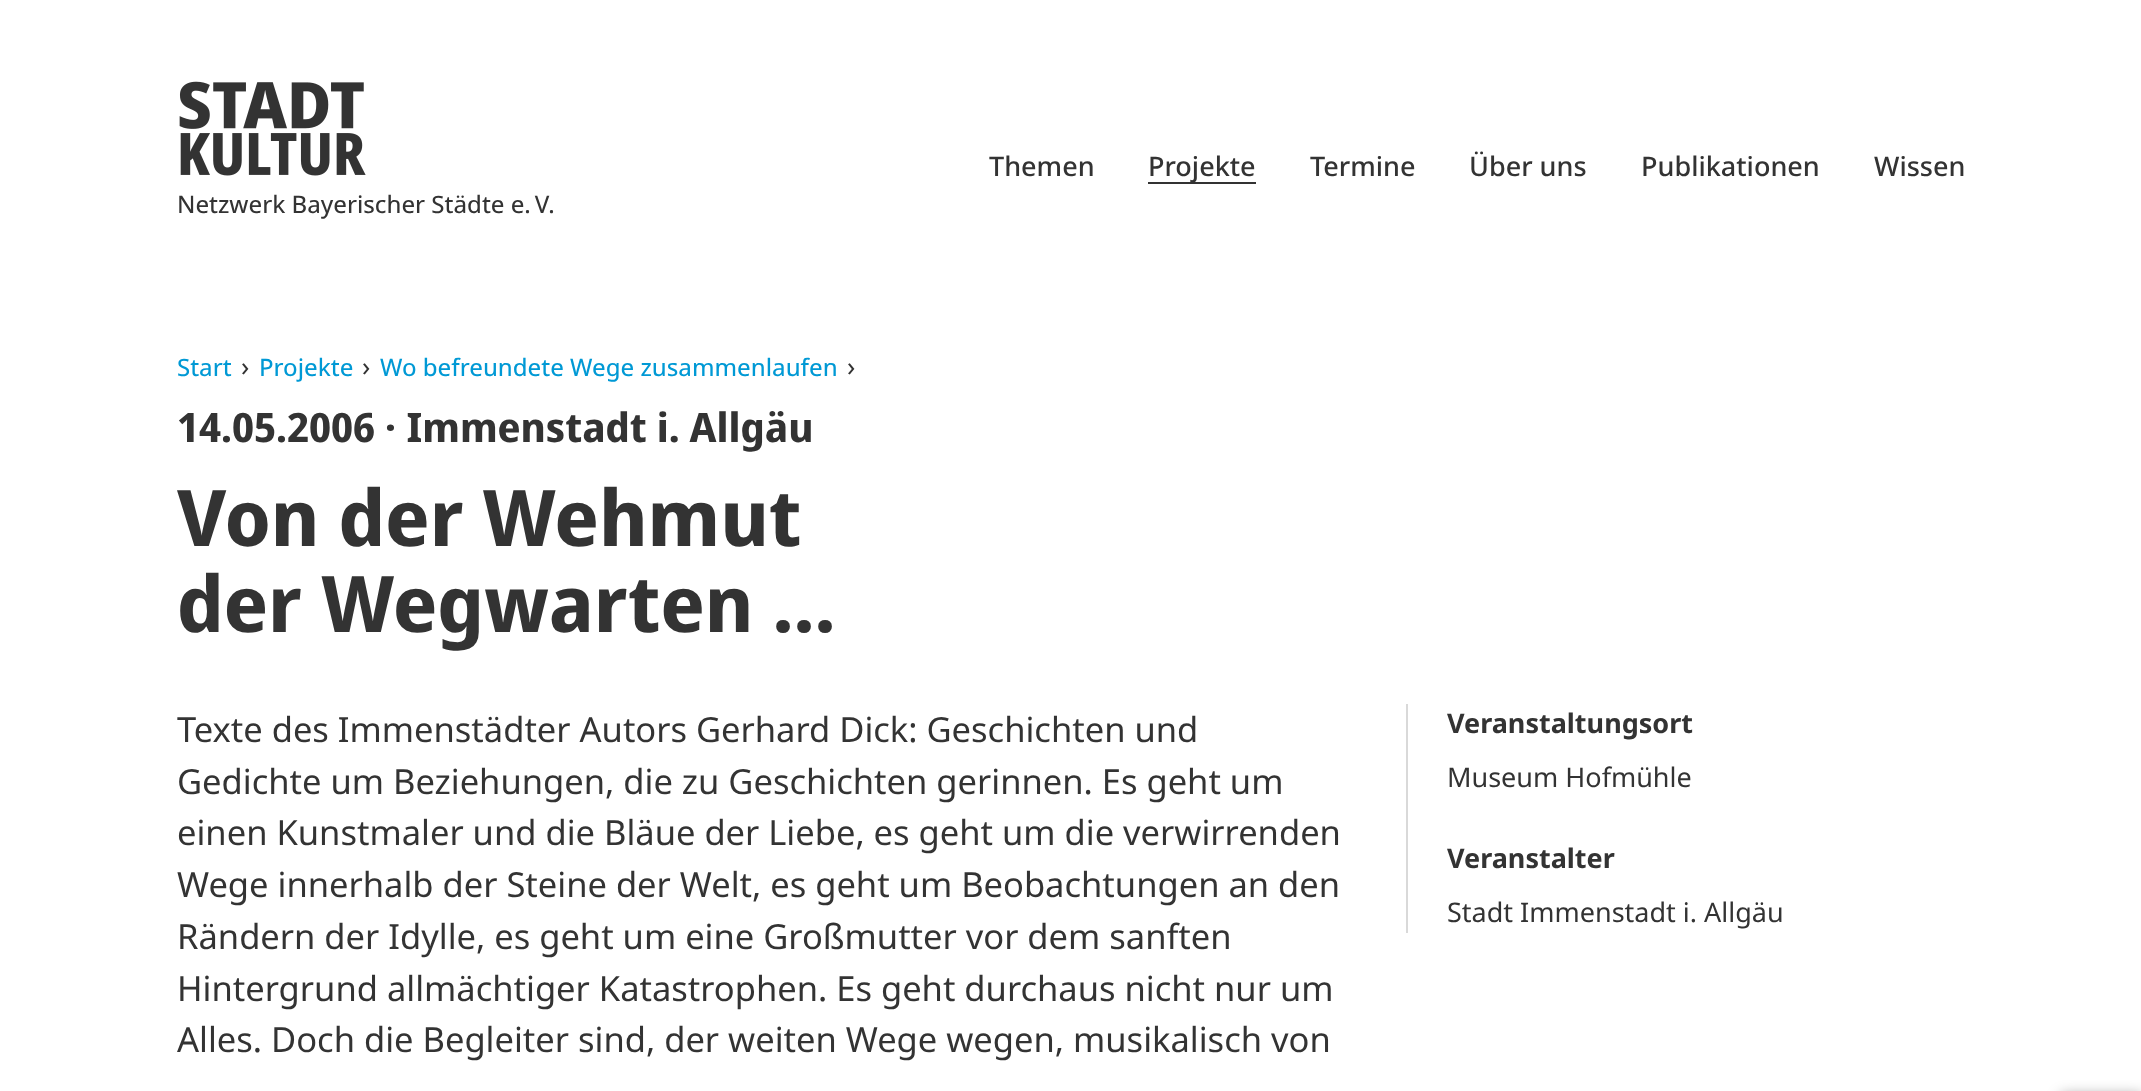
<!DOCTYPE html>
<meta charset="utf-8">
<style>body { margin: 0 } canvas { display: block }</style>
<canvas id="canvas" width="2141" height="1091"></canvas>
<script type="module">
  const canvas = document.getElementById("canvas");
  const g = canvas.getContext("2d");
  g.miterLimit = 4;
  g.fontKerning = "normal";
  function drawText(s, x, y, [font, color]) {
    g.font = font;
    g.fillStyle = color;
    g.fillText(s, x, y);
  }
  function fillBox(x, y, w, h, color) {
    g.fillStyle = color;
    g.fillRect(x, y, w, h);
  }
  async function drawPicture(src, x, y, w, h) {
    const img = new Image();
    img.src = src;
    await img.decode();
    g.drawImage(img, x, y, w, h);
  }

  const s1 = ["500 27px Noto Sans", "#333333"];
  const s2 = ["24px Noto Sans", "#333333"];
  const s3 = ["24px Noto Sans", "#0099D5"];
  const s4 = ["27px 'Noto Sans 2'", "#333333"];
  const s5 = ["bold 40.5px Noto Sans Display", "#333333"];
  const s6 = ["bold 78px Noto Sans Display", "#333333"];
  const s7 = ["34.5px 'Noto Sans 2'", "#333333"];
  const s8 = ["bold 27px Noto Sans", "#333333"];

  fillBox(0, 0, 2141, 1091, "#FFFFFF");
  drawText("Themen", 989, 176, s1);
  fillBox(1148, 182, 108, 2, "#333333");
  drawText("Projekte", 1148, 176, s1);
  drawText("Termine", 1310, 176, s1);
  drawText("Über uns", 1469, 176, s1);
  drawText("Publikationen", 1641, 176, s1);
  drawText("Wissen", 1874, 176, s1);
  await drawPicture("pic1.png", 179, 81, 187, 95);
  drawText("Netzwerk Bayerischer Städte e. V.", 177, 213, s2);
  drawText("Start", 177, 376, s3);
  drawText("›", 241, 376, s4);
  drawText("Projekte", 259, 376, s3);
  drawText("›", 362, 376, s4);
  drawText("Wo befreundete Wege zusammenlaufen", 380, 376, s3);
  drawText("›", 847, 376, s4);
  drawText("14.05.2006 · Immenstadt i. Allgäu", 177, 442, s5);
  drawText("Von der Wehmut", 177, 546, s6);
  drawText("der Wegwarten ...", 177, 632, s6);
  drawText("Texte des Immenstädter Autors Gerhard Dick: Geschichten und", 177, 742, s7);
  drawText("Gedichte um Beziehungen, die zu Geschichten gerinnen. Es geht um", 177, 794, s7);
  drawText("einen Kunstmaler und die Bläue der Liebe, es geht um die verwirrenden", 177, 845, s7);
  drawText("Wege innerhalb der Steine der Welt, es geht um Beobachtungen an den", 177, 897, s7);
  drawText("Rändern der Idylle, es geht um eine Großmutter vor dem sanften", 177, 949, s7);
  drawText("Hintergrund allmächtiger Katastrophen. Es geht durchaus nicht nur um", 177, 1001, s7);
  drawText("Alles. Doch die Begleiter sind, der weiten Wege wegen, musikalisch von", 177, 1052, s7);
  fillBox(1406, 704, 2, 229, "#D9D9D9");
  drawText("Veranstaltungsort", 1447, 733, s8);
  drawText("Museum Hofmühle", 1447, 787, s4);
  drawText("Veranstalter", 1447, 868, s8);
  drawText("Stadt Immenstadt i. Allgäu", 1447, 922, s4);
  g.fillStyle = "rgba(0, 0, 0, 0.4)";
  g.filter = "blur(7px)";
  g.beginPath();
  g.rect(2061, 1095, 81, 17);
  g.fill();
  g.filter = "none";
</script>
